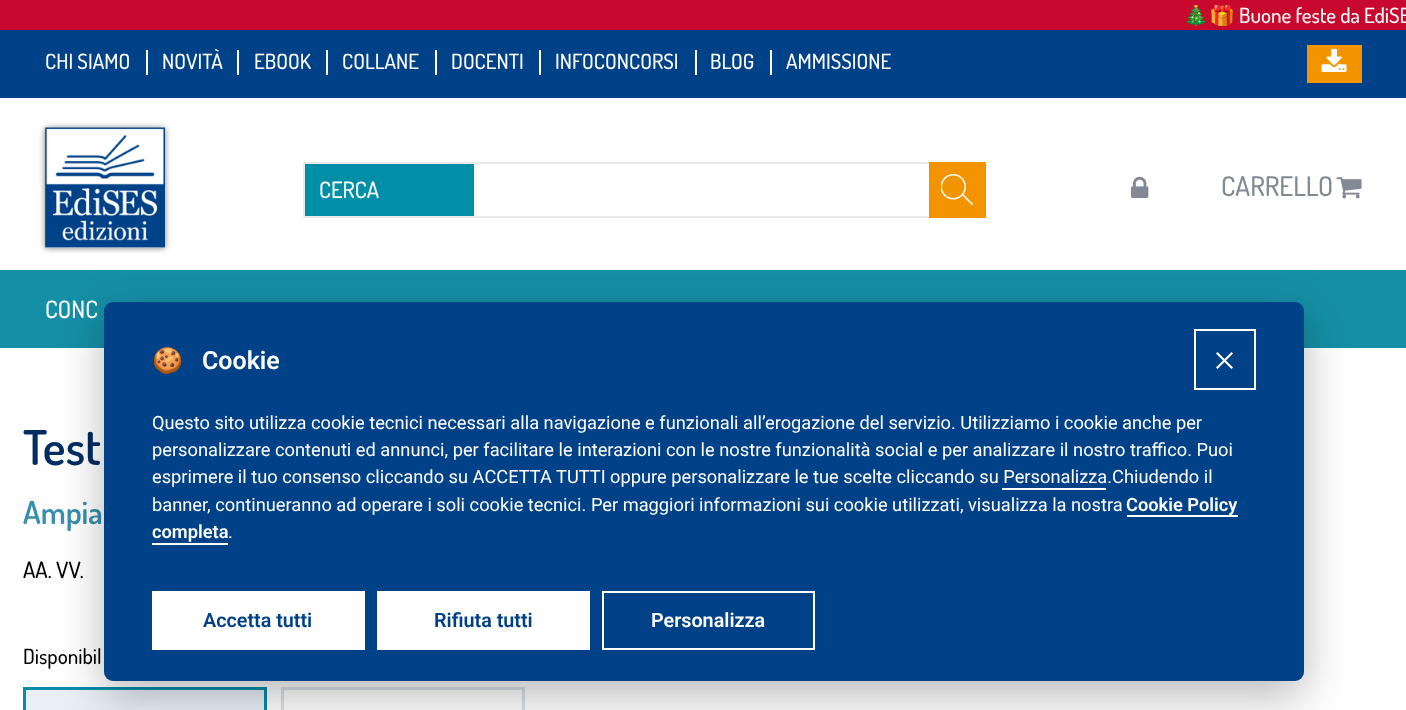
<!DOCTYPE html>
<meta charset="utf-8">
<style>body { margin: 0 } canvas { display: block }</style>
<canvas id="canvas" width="1406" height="710"></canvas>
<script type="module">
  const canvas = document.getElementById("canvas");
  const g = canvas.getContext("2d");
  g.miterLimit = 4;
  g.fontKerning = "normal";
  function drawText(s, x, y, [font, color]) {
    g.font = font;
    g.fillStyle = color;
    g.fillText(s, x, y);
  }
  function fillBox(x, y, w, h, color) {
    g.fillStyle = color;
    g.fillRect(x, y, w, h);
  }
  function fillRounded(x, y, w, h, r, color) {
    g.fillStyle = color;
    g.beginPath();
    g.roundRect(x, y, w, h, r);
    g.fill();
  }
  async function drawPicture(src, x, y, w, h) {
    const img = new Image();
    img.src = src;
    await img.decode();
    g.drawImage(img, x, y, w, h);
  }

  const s1 = ["21px Noto Color Emoji", "#FFFFFF"];
  const s2 = ["200 21px 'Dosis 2'", "#FFFFFF"];
  const s3 = ["200 22.5px 'Dosis 2'", "#FFFFFF"];
  const s4 = ["200 27px 'Dosis 2'", "#838994"];
  const s5 = ["200 24px 'Dosis 2'", "#FFFFFF"];
  const s6 = ["200 48px Dosis", "#002E64"];
  const s7 = ["200 31.5px Dosis", "#378FAE"];
  const s8 = ["200 22.5px 'Dosis 2'", "#000000"];
  const s9 = ["200 21px 'Dosis 2'", "#000000"];
  const s10 = ["bold 25px Noto Color Emoji", "#FFFFFF"];
  const s11 = ["600 25px Roboto", "#FFFFFF"];
  const s12 = ["18.25px Roboto", "#FFFFFF"];
  const s13 = ["600 18.25px Roboto", "#FFFFFF"];
  const s14 = ["600 19.75px Roboto", "#004186"];
  const s15 = ["600 19.75px Roboto", "#FFFFFF"];

  fillBox(0, 0, 1406, 710, "#FFFFFF");
  fillBox(0, 0, 1406, 30, "#C9082D");
  g.save();
  g.beginPath();
  g.rect(0, 5, 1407, 21);
  g.clip();
  drawText("🎄🎁", 1183, 23, s1);
  g.restore();
  drawText("Buone feste da EdiSE", 1239, 23, s2);
  fillBox(0, 30, 1406, 68, "#004187");
  drawText("CHI SIAMO", 45, 69, s2);
  fillBox(146, 50, 2, 25, "#FFFFFF");
  drawText("NOVITÀ", 162, 69, s2);
  fillBox(237, 50, 2, 25, "#FFFFFF");
  drawText("EBOOK", 254, 69, s2);
  fillBox(326, 50, 2, 25, "#FFFFFF");
  drawText("COLLANE", 342, 69, s2);
  fillBox(435, 50, 2, 25, "#FFFFFF");
  drawText("DOCENTI", 451, 69, s2);
  fillBox(539, 50, 2, 25, "#FFFFFF");
  drawText("INFOCONCORSI", 555, 69, s2);
  fillBox(695, 50, 2, 25, "#FFFFFF");
  drawText("BLOG", 710, 69, s2);
  fillBox(770, 50, 2, 25, "#FFFFFF");
  drawText("AMMISSIONE", 786, 69, s2);
  fillBox(1307, 45, 55, 38, "#F29400");
  await drawPicture("pic1.png", 1321, 48, 26, 24);
  g.fillStyle = "rgba(0, 0, 0, 0.5)";
  g.filter = "blur(3px)";
  g.beginPath();
  g.rect(45, 128, 120, 120);
  g.fill();
  g.filter = "none";
  fillBox(45, 128, 120, 120, "#FFFFFF");
  await drawPicture("pic2.png", 45, 127, 120, 121);
  g.beginPath();
  g.roundRect(304, 163, 681, 54, 0.5);
  g.strokeStyle = "#E9E9E9";
  g.lineWidth = 2;
  g.stroke();
  fillBox(305, 164, 169, 52, "#008FA6");
  drawText("CERCA", 319, 198, s3);
  fillBox(929, 162, 57, 56, "#F29400");
  await drawPicture("pic3.png", 941, 174, 33, 32);
  await drawPicture("pic4.png", 1131, 176, 18, 22);
  drawText("CARRELLO", 1221, 196, s4);
  await drawPicture("pic5.png", 1336, 177, 26, 22);
  fillBox(0, 270, 1406, 78, "#158FA6");
  drawText("CONC", 45, 318, s5);
  drawText("Test", 23, 465, s6);
  drawText("Ampia", 23, 524, s7);
  drawText("AA. VV.", 23, 578, s8);
  drawText("Disponibil", 23, 664, s9);
  g.fillStyle = "#E8F0F6";
  g.beginPath();
  g.rect(24.5, 688.5, 241, 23);
  g.fill();
  g.strokeStyle = "#038DA9";
  g.lineWidth = 3;
  g.stroke();
  g.strokeStyle = "#DBE2E8";
  g.strokeRect(282.5, 688.5, 241, 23);
  g.fillStyle = "rgba(2, 2, 3, 0.28)";
  g.filter = "blur(22.5px)";
  g.beginPath();
  g.roundRect(104, 317, 1200, 379, 9);
  g.fill();
  g.filter = "none";
  fillRounded(104, 302, 1200, 379, 9, "#004187");
  drawText("🍪", 152, 369, s10);
  drawText("Cookie", 202, 369, s11);
  g.strokeStyle = "#FFFFFF";
  g.lineWidth = 2;
  g.strokeRect(1195, 330, 60, 59);
  g.beginPath();
  g.moveTo(1231.5, 352);
  g.lineTo(1233, 353.5);
  g.lineTo(1217.5, 369);
  g.lineTo(1216, 367.5);
  g.closePath();
  g.fill();
  g.beginPath();
  g.moveTo(1216, 353.5);
  g.lineTo(1217.5, 352);
  g.lineTo(1233, 367.5);
  g.lineTo(1231.5, 369);
  g.closePath();
  g.fill();
  drawText("Questo sito utilizza cookie tecnici necessari alla navigazione e funzionali all’erogazione del servizio. Utilizziamo i cookie anche per", 152, 429, s12);
  drawText("personalizzare contenuti ed annunci, per facilitare le interazioni con le nostre funzionalità social e per analizzare il nostro traffico. Puoi", 152, 456, s12);
  drawText("esprimere il tuo consenso cliccando su ACCETTA TUTTI oppure personalizzare le tue scelte cliccando su Personalizza.Chiudendo il", 152, 483, s12);
  fillBox(1002, 488, 104, 2, "#FFFFFF");
  drawText("banner, continueranno ad operare i soli cookie tecnici. Per maggiori informazioni sui cookie utilizzati, visualizza la nostra", 152, 511, s12);
  drawText("Cookie Policy", 1126, 511, s13);
  fillBox(1127, 515, 111, 2, "#FFFFFF");
  drawText("completa", 152, 538, s13);
  fillBox(152, 543, 76, 2, "#FFFFFF");
  drawText(".", 228, 538, s12);
  fillBox(152, 591, 213, 59, "#FFFFFF");
  drawText("Accetta tutti", 203, 627, s14);
  fillBox(377, 591, 213, 59, "#FFFFFF");
  drawText("Rifiuta tutti", 434, 627, s14);
  g.strokeRect(603, 592, 211, 57);
  drawText("Personalizza", 651, 627, s15);
</script>
